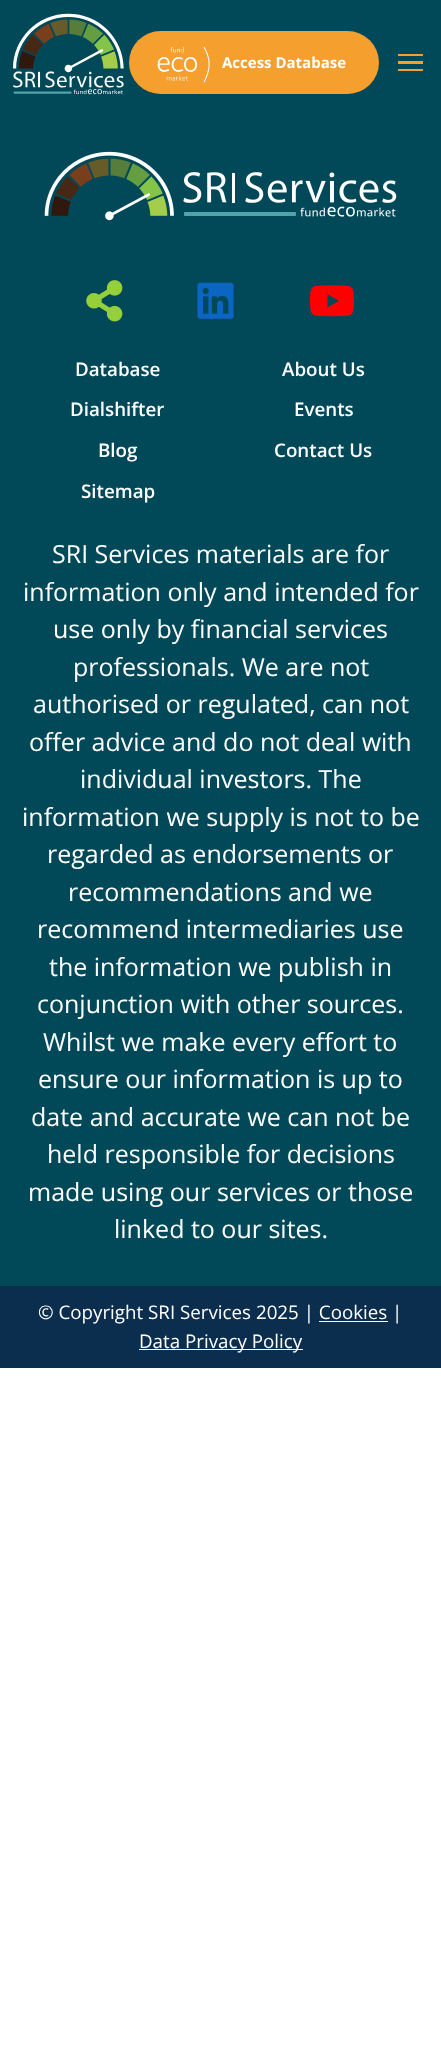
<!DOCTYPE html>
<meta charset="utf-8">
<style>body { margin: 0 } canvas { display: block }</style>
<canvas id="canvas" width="441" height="2064"></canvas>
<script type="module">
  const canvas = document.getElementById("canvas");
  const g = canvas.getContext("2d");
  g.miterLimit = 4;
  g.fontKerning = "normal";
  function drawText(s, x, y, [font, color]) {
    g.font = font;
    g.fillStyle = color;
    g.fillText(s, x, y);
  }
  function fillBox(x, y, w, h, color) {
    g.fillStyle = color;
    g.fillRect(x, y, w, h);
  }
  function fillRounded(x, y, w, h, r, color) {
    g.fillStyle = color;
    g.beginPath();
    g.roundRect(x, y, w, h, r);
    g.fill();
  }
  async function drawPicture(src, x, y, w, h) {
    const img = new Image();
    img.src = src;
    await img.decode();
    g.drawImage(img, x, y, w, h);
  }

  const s1 = ["bold 15px Open Sans", "#FFFFFF"];
  const s2 = ["600 18.75px Open Sans", "#FFFFFF"];
  const s3 = ["25px Open Sans", "#FFFFFF"];
  const s4 = ["18.75px Open Sans", "#FFFFFF"];

  fillBox(0, 0, 441, 2064, "#FFFFFF");
  fillBox(0, 0, 441, 1286, "#014958");
  await drawPicture("pic1.png", 13, 13, 111, 82);
  fillRounded(129, 31, 250, 63, 31.5, "#F49F2E");
  await drawPicture("pic2.png", 157, 46, 53, 37);
  drawText("Access Database", 222, 68, s1);
  fillBox(398, 54, 25, 2, "#F49F2E");
  fillBox(398, 61, 25, 3, "#F49F2E");
  fillBox(398, 69, 25, 2, "#F49F2E");
  await drawPicture("pic3.png", 44, 151, 353, 70);
  await drawPicture("pic4.png", 86, 280, 37, 42);
  await drawPicture("pic5.png", 197, 282, 37, 37);
  await drawPicture("pic6.png", 309, 285, 45, 32);
  drawText("Database", 75, 376, s2);
  drawText("About Us", 282, 376, s2);
  drawText("Dialshifter", 70, 416, s2);
  drawText("Events", 294, 416, s2);
  drawText("Blog", 98, 457, s2);
  drawText("Contact Us", 274, 457, s2);
  drawText("Sitemap", 81, 498, s2);
  drawText("SRI Services materials are for", 52, 563, s3);
  drawText("information only and intended for", 23, 601, s3);
  drawText("use only by financial services", 53, 638, s3);
  drawText("professionals. We are not", 73, 676, s3);
  drawText("authorised or regulated, can not", 33, 713, s3);
  drawText("offer advice and do not deal with", 29, 751, s3);
  drawText("individual investors. The", 80, 788, s3);
  drawText("information we supply is not to be", 22, 826, s3);
  drawText("regarded as endorsements or", 47, 863, s3);
  drawText("recommendations and we", 68, 901, s3);
  drawText("recommend intermediaries use", 37, 938, s3);
  drawText("the information we publish in", 49, 976, s3);
  drawText("conjunction with other sources.", 37, 1013, s3);
  drawText("Whilst we make every effort to", 43, 1051, s3);
  drawText("ensure our information is up to", 38, 1088, s3);
  drawText("date and accurate we can not be", 31, 1126, s3);
  drawText("held responsible for decisions", 47, 1163, s3);
  drawText("made using our services or those", 28, 1201, s3);
  drawText("linked to our sites.", 114, 1238, s3);
  fillBox(0, 1286, 441, 82, "#0C2E4E");
  drawText("© Copyright SRI Services 2025 | Cookies |", 38, 1319, s4);
  fillBox(139, 1349, 164, 1, "#FFFFFF");
  drawText("Data Privacy Policy", 139, 1348, s4);
  fillBox(319, 1321, 69, 1, "#FFFFFF");
</script>
